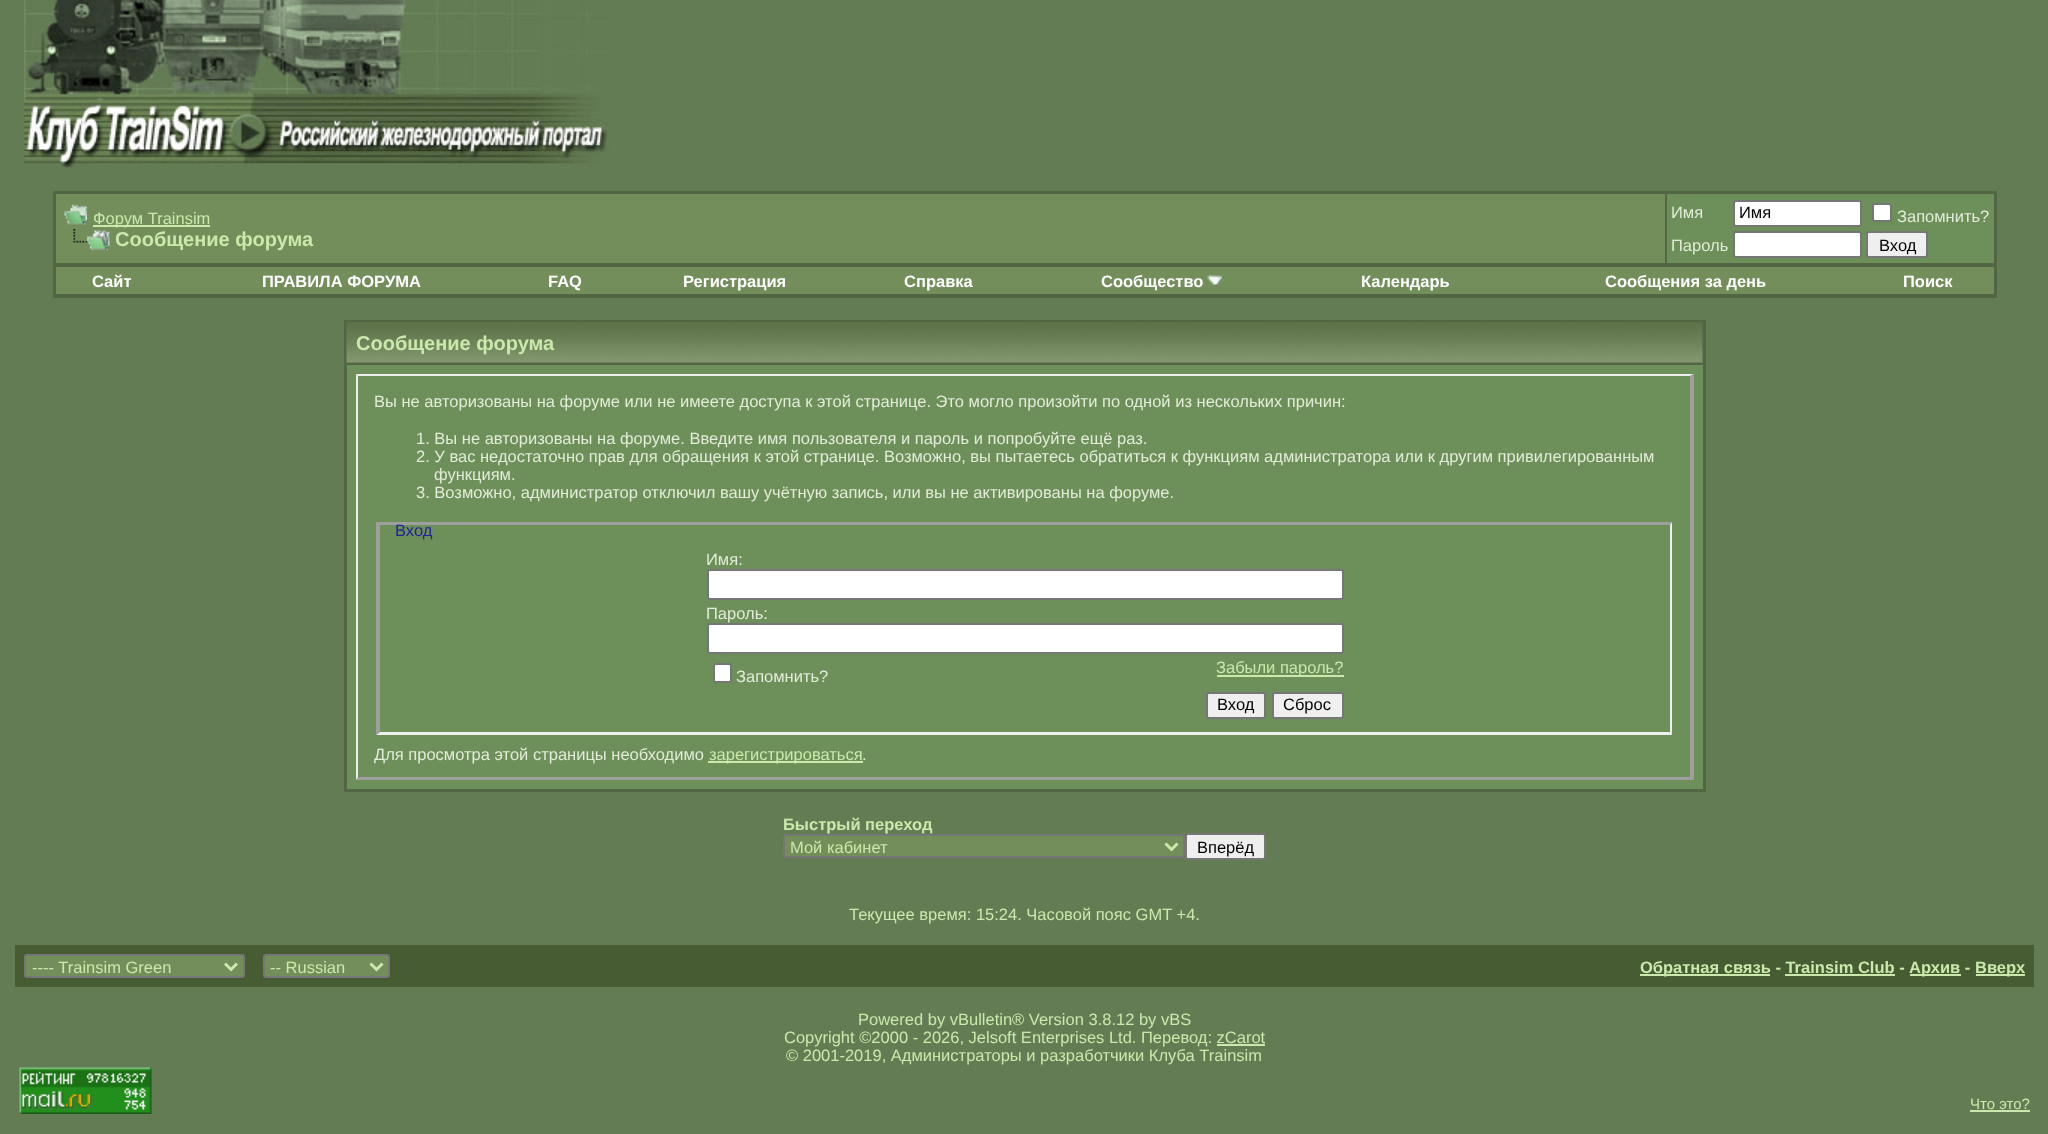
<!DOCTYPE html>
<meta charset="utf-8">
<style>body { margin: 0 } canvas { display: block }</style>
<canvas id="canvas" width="2048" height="1134"></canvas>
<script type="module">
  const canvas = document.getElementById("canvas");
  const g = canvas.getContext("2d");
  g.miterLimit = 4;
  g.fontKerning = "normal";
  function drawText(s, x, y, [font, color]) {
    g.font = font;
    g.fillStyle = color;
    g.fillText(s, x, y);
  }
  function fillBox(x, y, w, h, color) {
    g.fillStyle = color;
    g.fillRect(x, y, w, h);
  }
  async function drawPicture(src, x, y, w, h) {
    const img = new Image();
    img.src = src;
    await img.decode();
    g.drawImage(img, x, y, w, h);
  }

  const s1 = ["16.5px Liberation Sans", "#CAE9AB"];
  const s2 = ["bold 20px Liberation Sans", "#CAE9AB"];
  const s3 = ["16.5px Liberation Sans", "#E2ECD8"];
  const s4 = ["16.5px Liberation Sans", "#000000"];
  const s5 = ["bold 16.5px Liberation Sans", "#FFFFFF"];
  const s6 = ["16.5px Liberation Sans", "#22229C"];
  const s7 = ["bold 16.5px Liberation Sans", "#CAE9AB"];
  const s8 = ["15px Liberation Sans", "#CAE9AB"];

  fillBox(0, 0, 2048, 1134, "#647C54");
  await drawPicture("pic1.png", 23, 0, 589, 168);
  fillBox(53, 191, 1944, 75, "#526645");
  fillBox(56, 194, 1609, 69, "#738E5A");
  await drawPicture("pic2.png", 64, 204, 23, 21);
  fillBox(93, 225, 117, 2, "#CAE9AB");
  drawText("Форум Trainsim", 93, 224, s1);
  await drawPicture("pic3.png", 73, 229, 37, 22);
  drawText("Сообщение форума", 115, 246, s2);
  fillBox(1667, 194, 327, 69, "#6D8F5A");
  drawText("Имя", 1671, 218, s3);
  g.fillStyle = "#FFFFFF";
  g.beginPath();
  g.roundRect(1734, 201, 127, 25, 2);
  g.fill();
  g.strokeStyle = "#767676";
  g.lineWidth = 2;
  g.stroke();
  drawText("Имя", 1739, 218, s4);
  g.fillStyle = "#FFFFFF";
  g.beginPath();
  g.roundRect(1873, 204, 18, 17, 2);
  g.fill();
  g.stroke();
  drawText("Запомнить?", 1897, 222, s3);
  drawText("Пароль", 1671, 251, s3);
  g.fillStyle = "#FFFFFF";
  g.beginPath();
  g.roundRect(1734, 232, 127, 25, 2);
  g.fill();
  g.stroke();
  g.fillStyle = "#EFEFEF";
  g.beginPath();
  g.roundRect(1867, 232, 60, 25, 2);
  g.fill();
  g.stroke();
  drawText("Вход", 1879, 251, s4);
  fillBox(55, 266, 1940, 30, "#526645");
  fillBox(1995, 266, 2, 31, "#526645");
  fillBox(53, 296, 1944, 2, "#526645");
  fillBox(53, 266, 2, 31, "#526645");
  fillBox(56, 267, 1938, 27, "#738E5A");
  drawText("Сайт", 92, 287, s5);
  drawText("ПРАВИЛА ФОРУМА", 262, 287, s5);
  drawText("FAQ", 548, 287, s5);
  drawText("Регистрация", 683, 287, s5);
  drawText("Справка", 904, 287, s5);
  drawText("Сообщество", 1101, 287, s5);
  await drawPicture("pic4.png", 1207, 275, 17, 11);
  drawText("Календарь", 1361, 287, s5);
  drawText("Сообщения за день", 1605, 287, s5);
  drawText("Поиск", 1903, 287, s5);
  fillBox(344, 320, 1362, 472, "#526645");
  await drawPicture("pic5.png", 346, 322, 1357, 41);
  drawText("Сообщение форума", 356, 350, s2);
  fillBox(347, 365, 1356, 424, "#6D8F5A");
  g.fillStyle = "#EEEEEE";
  g.beginPath();
  g.moveTo(356, 374);
  g.lineTo(1694, 374);
  g.lineTo(1690, 376);
  g.lineTo(358, 376);
  g.closePath();
  g.fill();
  g.fillStyle = "#9F9F9F";
  g.beginPath();
  g.moveTo(1694, 374);
  g.lineTo(1694, 780);
  g.lineTo(1690, 777);
  g.lineTo(1690, 376);
  g.closePath();
  g.fill();
  g.beginPath();
  g.moveTo(1694, 780);
  g.lineTo(356, 780);
  g.lineTo(358, 777);
  g.lineTo(1690, 777);
  g.closePath();
  g.fill();
  g.fillStyle = "#EEEEEE";
  g.beginPath();
  g.moveTo(356, 780);
  g.lineTo(356, 374);
  g.lineTo(358, 376);
  g.lineTo(358, 777);
  g.closePath();
  g.fill();
  drawText("Вы не авторизованы на форуме или не имеете доступа к этой странице. Это могло произойти по одной из нескольких причин:", 374, 407, s3);
  drawText("1. Вы не авторизованы на форуме. Введите имя пользователя и пароль и попробуйте ещё раз.", 416, 444, s3);
  drawText("2. У вас недостаточно прав для обращения к этой странице. Возможно, вы пытаетесь обратиться к функциям администратора или к другим привилегированным", 416, 462, s3);
  drawText("функциям.", 434, 480, s3);
  drawText("3. Возможно, администратор отключил вашу учётную запись, или вы не активированы на форуме.", 416, 498, s3);
  g.fillStyle = "#9F9F9F";
  g.beginPath();
  g.moveTo(376, 522);
  g.lineTo(1672, 522);
  g.lineTo(1670, 525);
  g.lineTo(380, 525);
  g.closePath();
  g.fill();
  g.fillStyle = "#EFEFEF";
  g.beginPath();
  g.moveTo(1672, 522);
  g.lineTo(1672, 735);
  g.lineTo(1670, 732);
  g.lineTo(1670, 525);
  g.closePath();
  g.fill();
  g.beginPath();
  g.moveTo(1672, 735);
  g.lineTo(376, 735);
  g.lineTo(380, 732);
  g.lineTo(1670, 732);
  g.closePath();
  g.fill();
  g.fillStyle = "#9F9F9F";
  g.beginPath();
  g.moveTo(376, 735);
  g.lineTo(376, 522);
  g.lineTo(380, 525);
  g.lineTo(380, 732);
  g.closePath();
  g.fill();
  drawText("Вход", 395, 536, s6);
  drawText("Имя:", 706, 565, s3);
  g.fillStyle = "#FFFFFF";
  g.beginPath();
  g.roundRect(708, 570, 635, 29, 2);
  g.fill();
  g.stroke();
  drawText("Пароль:", 706, 619, s3);
  g.fillStyle = "#FFFFFF";
  g.beginPath();
  g.roundRect(708, 624, 635, 29, 2);
  g.fill();
  g.stroke();
  g.beginPath();
  g.roundRect(714, 664, 17, 18, 2);
  g.fill();
  g.stroke();
  drawText("Запомнить?", 736, 682, s3);
  fillBox(1217, 675, 127, 2, "#CAE9AB");
  drawText("Забыли пароль?", 1216, 673, s1);
  g.fillStyle = "#EFEFEF";
  g.beginPath();
  g.roundRect(1207, 693, 58, 25, 2);
  g.fill();
  g.stroke();
  drawText("Вход", 1217, 710, s4);
  g.fillStyle = "#EFEFEF";
  g.beginPath();
  g.roundRect(1273, 693, 70, 25, 2);
  g.fill();
  g.stroke();
  drawText("Сброс", 1283, 710, s4);
  drawText("Для просмотра этой страницы необходимо", 374, 760, s3);
  fillBox(708, 761, 155, 2, "#CAE9AB");
  drawText("зарегистрироваться", 709, 760, s1);
  drawText(".", 862, 760, s3);
  drawText("Быстрый переход", 783, 830, s7);
  g.fillStyle = "#738E5A";
  g.beginPath();
  g.roundRect(784, 835, 400, 22, 2);
  g.fill();
  g.stroke();
  g.beginPath();
  g.moveTo(1165.5, 843.5);
  g.lineTo(1171.5, 849.5);
  g.lineTo(1177.5, 843.5);
  g.strokeStyle = "#CAE9AB";
  g.lineWidth = 3;
  g.stroke();
  drawText("Мой кабинет", 790, 853, s1);
  g.fillStyle = "#EFEFEF";
  g.beginPath();
  g.roundRect(1186, 834, 79, 25, 2);
  g.fill();
  g.strokeStyle = "#767676";
  g.lineWidth = 2;
  g.stroke();
  drawText("Вперёд", 1197, 853, s4);
  drawText("Текущее время: 15:24. Часовой пояс GMT +4.", 849, 920, s1);
  fillBox(15, 945, 2019, 42, "#485C34");
  g.fillStyle = "#738E5A";
  g.beginPath();
  g.roundRect(25, 955, 219, 22, 2);
  g.fill();
  g.stroke();
  g.beginPath();
  g.moveTo(225, 963.5);
  g.lineTo(231, 969.5);
  g.lineTo(237, 963.5);
  g.strokeStyle = "#CAE9AB";
  g.lineWidth = 3;
  g.stroke();
  drawText("---- Trainsim Green", 32, 973, s1);
  g.fillStyle = "#738E5A";
  g.beginPath();
  g.roundRect(264, 955, 125, 22, 2);
  g.fill();
  g.strokeStyle = "#767676";
  g.lineWidth = 2;
  g.stroke();
  g.beginPath();
  g.moveTo(370.5, 963.5);
  g.lineTo(376.5, 969.5);
  g.lineTo(382.5, 963.5);
  g.strokeStyle = "#CAE9AB";
  g.lineWidth = 3;
  g.stroke();
  drawText("-- Russian", 270, 973, s1);
  fillBox(1640, 974, 130, 2, "#CAE9AB");
  drawText("Обратная связь - Trainsim Club -", 1640, 973, s7);
  fillBox(1785, 974, 110, 2, "#CAE9AB");
  fillBox(1910, 974, 51, 2, "#CAE9AB");
  drawText("Архив -", 1909, 973, s7);
  fillBox(1976, 974, 49, 2, "#CAE9AB");
  drawText("Вверх", 1975, 973, s7);
  drawText("Powered by vBulletin® Version 3.8.12 by vBS", 858, 1025, s1);
  drawText("Copyright ©2000 - 2026, Jelsoft Enterprises Ltd. Перевод: zCarot", 784, 1043, s1);
  fillBox(1217, 1044, 48, 2, "#CAE9AB");
  drawText("© 2001-2019, Администраторы и разработчики Клуба Trainsim", 786, 1061, s1);
  await drawPicture("pic6.png", 19, 1067, 133, 47);
  drawText("Что это?", 1970, 1109, s8);
  fillBox(1970, 1110, 60, 2, "#CAE9AB");
</script>
